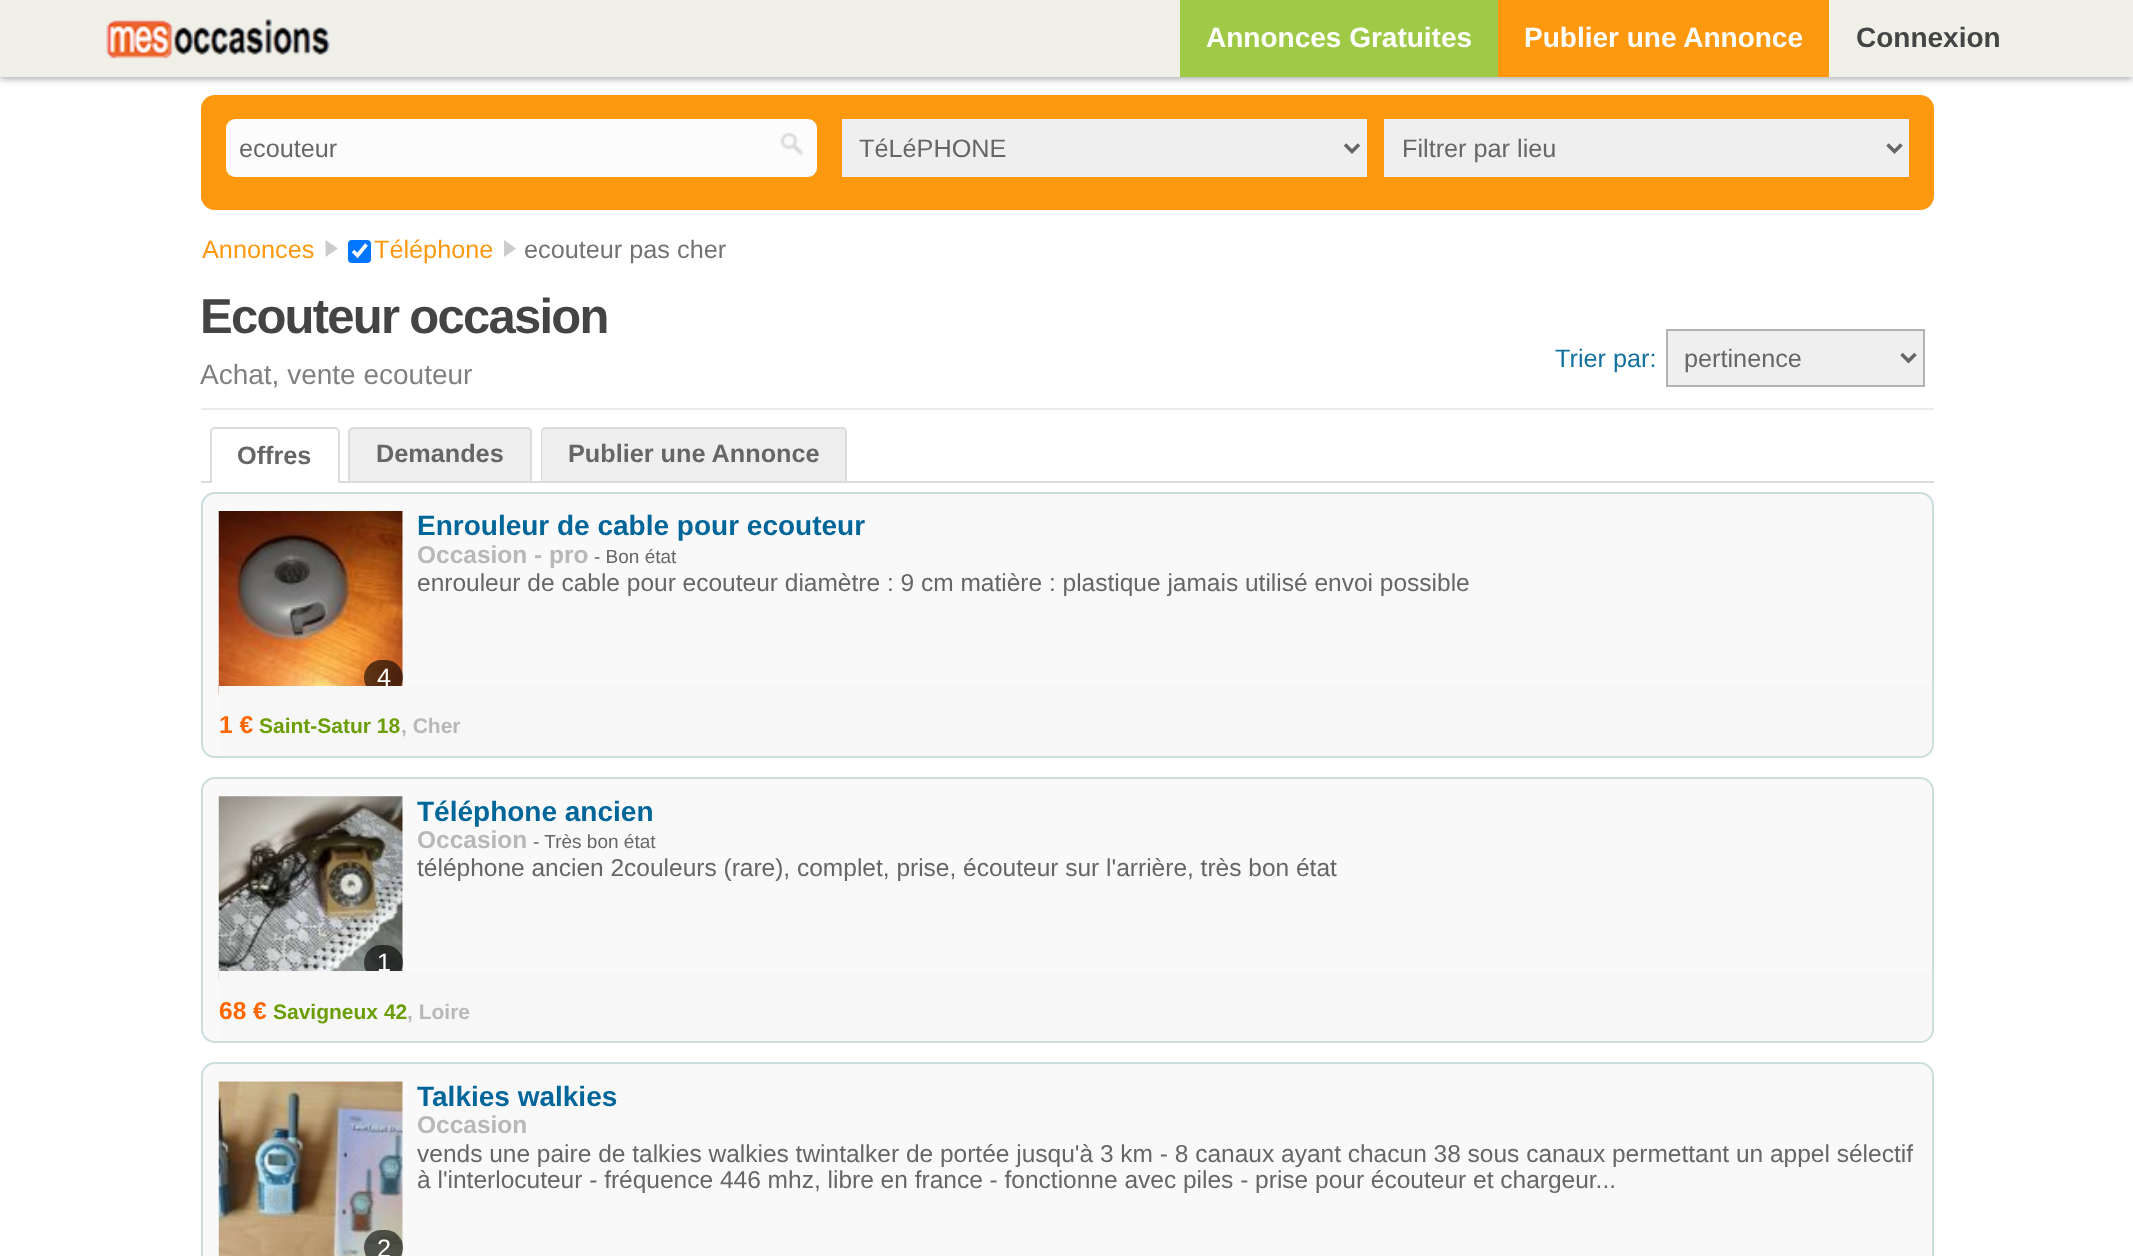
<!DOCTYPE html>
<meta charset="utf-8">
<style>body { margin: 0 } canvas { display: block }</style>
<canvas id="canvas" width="2133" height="1256"></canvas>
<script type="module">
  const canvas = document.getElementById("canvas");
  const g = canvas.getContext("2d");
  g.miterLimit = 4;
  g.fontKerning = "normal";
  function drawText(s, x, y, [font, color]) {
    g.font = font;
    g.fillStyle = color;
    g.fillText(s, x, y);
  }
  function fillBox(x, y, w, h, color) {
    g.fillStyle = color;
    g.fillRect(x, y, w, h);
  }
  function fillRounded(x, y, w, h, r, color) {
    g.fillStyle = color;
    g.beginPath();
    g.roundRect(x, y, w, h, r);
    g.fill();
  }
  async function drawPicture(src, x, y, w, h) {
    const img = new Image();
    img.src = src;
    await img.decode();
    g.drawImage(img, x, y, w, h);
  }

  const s1 = ["bold 28px Liberation Sans", "#FFFFFF"];
  const s2 = ["bold 28px Liberation Sans", "#444444"];
  const s3 = ["25.25px Liberation Sans", "#666666"];
  const s4 = ["25.25px Liberation Sans", "#FE980F"];
  const s5 = ["25.25px Liberation Sans", "#727272"];
  const s6 = ["bold 49px Liberation Sans", "#444444"];
  const s7 = ["25.25px Liberation Sans", "#13719F"];
  const s8 = ["28px Liberation Sans", "#808080"];
  const s9 = ["bold 25.25px Liberation Sans", "#666666"];
  const s10 = ["bold 28px Liberation Sans", "#006699"];
  const s11 = ["bold 24.5px Liberation Sans", "#B8B8B8"];
  const s12 = ["19px Liberation Sans", "#666666"];
  const s13 = ["24.5px Liberation Sans", "#666666"];
  const s14 = ["25.25px Liberation Sans", "#FFFFFF"];
  const s15 = ["bold 24.5px Liberation Sans", "#FF6600"];
  const s16 = ["bold 21px Liberation Sans", "#6B9E06"];
  const s17 = ["bold 21px Liberation Sans", "#B8B8B8"];

  fillBox(0, 0, 2133, 1256, "#FFFFFF");
  g.fillStyle = "#AAAAAA";
  g.filter = "blur(3.5px)";
  g.beginPath();
  g.rect(0, 2, 2133, 77);
  g.fill();
  g.filter = "none";
  fillBox(0, 0, 2133, 77, "#F0F0E9");
  await drawPicture("pic1.png", 106, 18, 224, 41);
  fillBox(1180, 0, 318, 77, "#9ECA47");
  drawText("Annonces Gratuites", 1206, 47, s1);
  fillBox(1498, 0, 331, 77, "#FE980F");
  drawText("Publier une Annonce", 1524, 47, s1);
  drawText("Connexion", 1856, 47, s2);
  fillRounded(201, 95, 1733, 115, 14, "#FE980F");
  fillRounded(226, 119, 591, 58, 9, "#FCFCFC");
  await drawPicture("pic2.png", 780, 132, 24, 24);
  drawText("ecouteur", 239, 157, s3);
  fillBox(842, 119, 525, 58, "#EFEFEF");
  g.beginPath();
  g.moveTo(1345, 144.5);
  g.lineTo(1352, 151.5);
  g.lineTo(1359, 144.5);
  g.strokeStyle = "#666666";
  g.lineWidth = 3.5;
  g.stroke();
  drawText("TéLéPHONE", 859, 157, s3);
  fillBox(1384, 119, 525, 58, "#EFEFEF");
  g.beginPath();
  g.moveTo(1887.5, 144.5);
  g.lineTo(1894.5, 151.5);
  g.lineTo(1901.5, 144.5);
  g.stroke();
  drawText("Filtrer par lieu", 1402, 157, s3);
  drawText("Annonces", 202, 258, s4);
  g.fillStyle = "#CCCCCC";
  g.beginPath();
  g.moveTo(325.5, 257);
  g.lineTo(325.5, 240);
  g.lineTo(338, 248.5);
  g.closePath();
  g.fill();
  fillRounded(348, 240, 23, 23, 4, "#0075FF");
  g.beginPath();
  g.moveTo(353, 251);
  g.lineTo(357.5, 255.5);
  g.lineTo(366.5, 244.5);
  g.strokeStyle = "#FFFFFF";
  g.lineWidth = 3.6;
  g.stroke();
  drawText("Téléphone", 374, 258, s4);
  g.fillStyle = "#CCCCCC";
  g.beginPath();
  g.moveTo(504, 257);
  g.lineTo(504, 240);
  g.lineTo(516, 248.5);
  g.closePath();
  g.fill();
  drawText("ecouteur pas cher", 524, 258, s5);
  fillBox(201, 408, 1733, 2, "#EBEBEB");
  g.letterSpacing = "-1.75px";
  g.wordSpacing = "-1px";
  drawText("Ecouteur occasion", 200, 333, s6);
  g.letterSpacing = "0px";
  g.wordSpacing = "0px";
  drawText("Trier par:", 1555, 367, s7);
  g.fillStyle = "#EFEFEF";
  g.beginPath();
  g.rect(1667, 330, 257, 56);
  g.fill();
  g.strokeStyle = "#B4B3B1";
  g.lineWidth = 2;
  g.stroke();
  g.beginPath();
  g.moveTo(1901.5, 354);
  g.lineTo(1908.5, 361);
  g.lineTo(1915.5, 354);
  g.strokeStyle = "#666666";
  g.lineWidth = 3.5;
  g.stroke();
  drawText("pertinence", 1684, 367, s3);
  drawText("Achat, vente ecouteur", 200, 384, s8);
  fillBox(201, 481, 1733, 2, "#DCDCDC");
  g.beginPath();
  g.moveTo(215, 427);
  g.lineTo(334, 427);
  g.bezierCurveTo(337, 427, 340, 429, 340, 432);
  g.lineTo(340, 481);
  g.lineTo(210, 481);
  g.lineTo(210, 432);
  g.bezierCurveTo(210, 429, 212, 427, 215, 427);
  g.closePath();
  g.moveTo(215, 429);
  g.lineTo(334, 429);
  g.bezierCurveTo(336, 429, 338, 430, 338, 432);
  g.lineTo(338, 481);
  g.lineTo(212, 481);
  g.lineTo(212, 432);
  g.bezierCurveTo(212, 430, 213, 429, 215, 429);
  g.closePath();
  g.fill("evenodd");
  fillBox(212, 431, 126, 52, "#FFFFFF");
  drawText("Offres", 237, 464, s9);
  g.fillStyle = "#EEEEEE";
  g.beginPath();
  g.roundRect(348, 427, 184, 54, [5, 5, 0, 0]);
  g.fill();
  g.fillStyle = "#DCDCDC";
  g.beginPath();
  g.moveTo(354, 427);
  g.lineTo(527, 427);
  g.bezierCurveTo(530, 427, 532, 429, 532, 432);
  g.lineTo(532, 481);
  g.lineTo(348, 481);
  g.lineTo(348, 432);
  g.bezierCurveTo(348, 429, 351, 427, 354, 427);
  g.closePath();
  g.moveTo(354, 429);
  g.lineTo(527, 429);
  g.bezierCurveTo(529, 429, 530, 430, 530, 432);
  g.lineTo(530, 481);
  g.lineTo(350, 481);
  g.lineTo(350, 432);
  g.bezierCurveTo(350, 430, 352, 429, 354, 429);
  g.closePath();
  g.fill("evenodd");
  drawText("Demandes", 376, 462, s9);
  g.fillStyle = "#EEEEEE";
  g.beginPath();
  g.roundRect(541, 427, 306, 54, [5, 5, 0, 0]);
  g.fill();
  g.fillStyle = "#DCDCDC";
  g.beginPath();
  g.moveTo(546, 427);
  g.lineTo(842, 427);
  g.bezierCurveTo(845, 427, 847, 429, 847, 432);
  g.lineTo(847, 481);
  g.lineTo(541, 481);
  g.lineTo(541, 432);
  g.bezierCurveTo(541, 429, 543, 427, 546, 427);
  g.closePath();
  g.moveTo(546, 429);
  g.lineTo(842, 429);
  g.bezierCurveTo(844, 429, 845, 430, 845, 432);
  g.lineTo(845, 481);
  g.lineTo(542, 481);
  g.lineTo(542, 432);
  g.bezierCurveTo(542, 430, 544, 429, 546, 429);
  g.closePath();
  g.fill("evenodd");
  drawText("Publier une Annonce", 568, 462, s9);
  g.fillStyle = "#F9F9F9";
  g.beginPath();
  g.roundRect(202, 493, 1731, 264, 13);
  g.fill();
  g.strokeStyle = "#CCDDDD";
  g.lineWidth = 2;
  g.stroke();
  drawText("Enrouleur de cable pour ecouteur", 417, 535, s10);
  drawText("Occasion - pro", 417, 563, s11);
  drawText("- Bon état", 594, 563, s12);
  drawText("enrouleur de cable pour ecouteur diamètre : 9 cm matière : plastique jamais utilisé envoi possible", 417, 591, s13);
  fillBox(402, 511, 1, 175, "#FFFFFF");
  await drawPicture("pic3.png", 218, 511, 185, 184);
  fillRounded(364, 660, 39, 35, 17.5, "rgba(0, 0, 0, 0.6)");
  drawText("4", 377, 686, s14);
  g.fillStyle = "#F7F7F7";
  g.beginPath();
  g.roundRect(219, 686, 1713, 70, [0, 0, 12, 0]);
  g.fill();
  drawText("1 €", 219, 733, s15);
  drawText("Saint-Satur 18", 259, 733, s16);
  drawText(", Cher", 401, 733, s17);
  g.fillStyle = "#F9F9F9";
  g.beginPath();
  g.roundRect(202, 778, 1731, 264, 13);
  g.fill();
  g.stroke();
  drawText("Téléphone ancien", 417, 821, s10);
  drawText("Occasion", 417, 848, s11);
  drawText("- Très bon état", 533, 848, s12);
  drawText("téléphone ancien 2couleurs (rare), complet, prise, écouteur sur l'arrière, très bon état", 417, 876, s13);
  fillBox(219, 796, 184, 175, "#FFFFFF");
  await drawPicture("pic4.png", 218, 796, 185, 184);
  fillRounded(364, 945, 39, 35, 17.5, "rgba(0, 0, 0, 0.6)");
  drawText("1", 377, 971, s14);
  g.fillStyle = "#F7F7F7";
  g.beginPath();
  g.roundRect(219, 971, 1713, 70, [0, 0, 12, 0]);
  g.fill();
  drawText("68 €", 219, 1019, s15);
  drawText("Savigneux 42", 273, 1019, s16);
  drawText(", Loire", 407, 1019, s17);
  g.fillStyle = "#F9F9F9";
  g.beginPath();
  g.roundRect(202, 1063, 1731, 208, 13);
  g.fill();
  g.stroke();
  drawText("Talkies walkies", 417, 1106, s10);
  drawText("Occasion", 417, 1133, s11);
  drawText("vends une paire de talkies walkies twintalker de portée jusqu'à 3 km - 8 canaux ayant chacun 38 sous canaux permettant un appel sélectif", 417, 1162, s13);
  drawText("à l'interlocuteur - fréquence 446 mhz, libre en france - fonctionne avec piles - prise pour écouteur et chargeur...", 417, 1188, s13);
  fillBox(402, 1082, 1, 174, "#FFFFFF");
  await drawPicture("pic5.png", 218, 1081, 185, 175);
  fillRounded(364, 1230, 39, 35, 17.5, "rgba(0, 0, 0, 0.6)");
  drawText("2", 377, 1257, s14);
</script>
